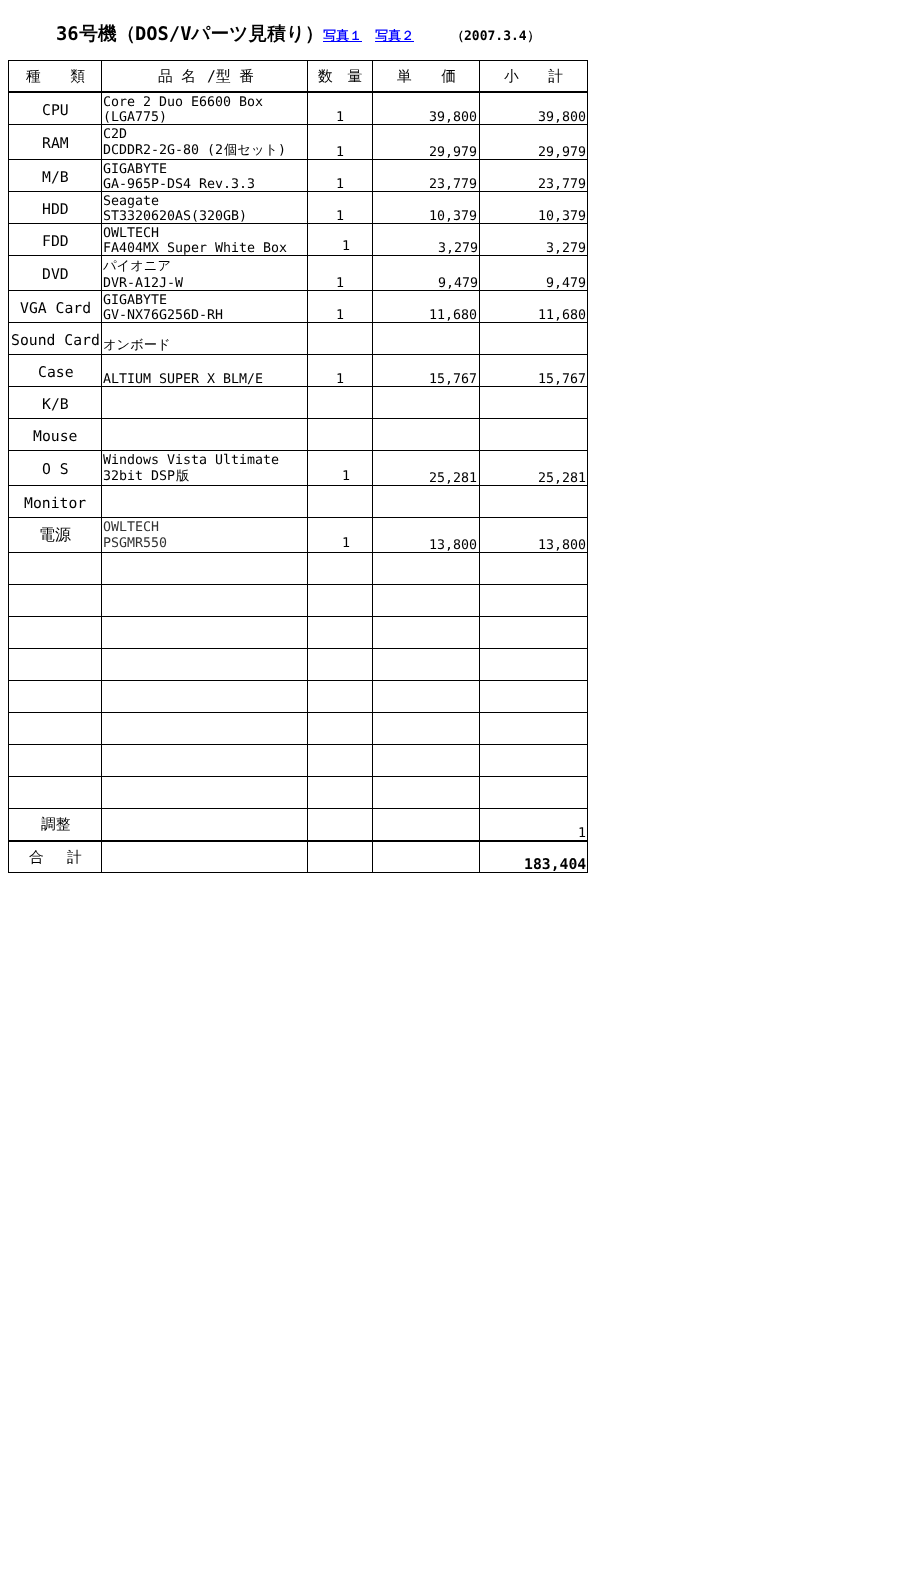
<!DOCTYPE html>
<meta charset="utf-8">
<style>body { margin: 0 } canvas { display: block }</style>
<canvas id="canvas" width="922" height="1594"></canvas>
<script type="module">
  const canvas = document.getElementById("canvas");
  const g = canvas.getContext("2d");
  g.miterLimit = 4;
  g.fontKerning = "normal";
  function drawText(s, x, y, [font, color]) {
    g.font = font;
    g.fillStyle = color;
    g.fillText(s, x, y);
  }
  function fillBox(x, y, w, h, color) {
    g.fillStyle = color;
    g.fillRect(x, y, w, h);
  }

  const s1 = ["bold 18.75px DejaVu Sans Mono", "#000000"];
  const s2 = ["bold 18.75px WenQuanYi Zen Hei", "#000000"];
  const s3 = ["bold 13px WenQuanYi Zen Hei", "#0000FF"];
  const s4 = ["bold 13px WenQuanYi Zen Hei", "#000000"];
  const s5 = ["bold 13px DejaVu Sans Mono", "#000000"];
  const s6 = ["500 14.75px WenQuanYi Zen Hei", "#000000"];
  const s7 = ["14.75px DejaVu Sans Mono", "#000000"];
  const s8 = ["13.3px DejaVu Sans Mono", "#000000"];
  const s9 = ["500 13.3px WenQuanYi Zen Hei", "#000000"];
  const s10 = ["500 16px WenQuanYi Zen Hei", "#000000"];
  const s11 = ["13.3px DejaVu Sans Mono", "#333333"];
  const s12 = ["bold 14.75px DejaVu Sans Mono", "#000000"];

  fillBox(0, 0, 922, 1594, "#FFFFFF");
  fillBox(479, 124, 109, 1, "#000000");
  fillBox(479, 322, 109, 1, "#000000");
  fillBox(372, 386, 216, 1, "#000000");
  fillBox(479, 485, 109, 1, "#000000");
  fillBox(479, 616, 109, 1, "#000000");
  fillBox(587, 648, 1, 225, "#000000");
  fillBox(587, 517, 1, 132, "#000000");
  fillBox(587, 418, 1, 100, "#000000");
  fillBox(587, 354, 1, 65, "#000000");
  fillBox(587, 159, 1, 196, "#000000");
  fillBox(587, 60, 1, 100, "#000000");
  fillBox(372, 808, 108, 1, "#000000");
  fillBox(479, 872, 109, 1, "#000000");
  fillBox(479, 840, 1, 33, "#000000");
  fillBox(479, 808, 1, 33, "#000000");
  fillBox(479, 808, 109, 1, "#000000");
  fillBox(479, 776, 1, 33, "#000000");
  fillBox(479, 776, 109, 1, "#000000");
  fillBox(479, 744, 1, 33, "#000000");
  fillBox(479, 744, 109, 1, "#000000");
  fillBox(479, 712, 1, 33, "#000000");
  fillBox(479, 712, 109, 1, "#000000");
  fillBox(479, 680, 1, 33, "#000000");
  fillBox(479, 680, 109, 1, "#000000");
  fillBox(479, 648, 1, 33, "#000000");
  fillBox(479, 648, 109, 1, "#000000");
  fillBox(479, 584, 1, 65, "#000000");
  fillBox(479, 584, 109, 1, "#000000");
  fillBox(479, 552, 1, 33, "#000000");
  fillBox(479, 552, 109, 1, "#000000");
  fillBox(479, 517, 1, 36, "#000000");
  fillBox(479, 517, 109, 1, "#000000");
  fillBox(479, 450, 1, 68, "#000000");
  fillBox(479, 450, 109, 1, "#000000");
  fillBox(479, 418, 1, 33, "#000000");
  fillBox(479, 418, 109, 1, "#000000");
  fillBox(479, 354, 1, 65, "#000000");
  fillBox(479, 354, 109, 1, "#000000");
  fillBox(479, 322, 1, 33, "#000000");
  fillBox(372, 322, 108, 1, "#000000");
  fillBox(479, 290, 1, 33, "#000000");
  fillBox(479, 290, 109, 1, "#000000");
  fillBox(479, 255, 1, 36, "#000000");
  fillBox(372, 255, 216, 1, "#000000");
  fillBox(479, 223, 1, 33, "#000000");
  fillBox(479, 223, 109, 1, "#000000");
  fillBox(479, 191, 1, 33, "#000000");
  fillBox(372, 191, 216, 1, "#000000");
  fillBox(479, 159, 1, 33, "#000000");
  fillBox(479, 159, 109, 1, "#000000");
  fillBox(479, 124, 1, 36, "#000000");
  fillBox(372, 124, 108, 1, "#000000");
  fillBox(372, 872, 108, 1, "#000000");
  fillBox(372, 840, 1, 33, "#000000");
  fillBox(372, 808, 1, 33, "#000000");
  fillBox(307, 808, 66, 1, "#000000");
  fillBox(372, 776, 1, 33, "#000000");
  fillBox(372, 776, 108, 1, "#000000");
  fillBox(372, 744, 1, 33, "#000000");
  fillBox(372, 744, 108, 1, "#000000");
  fillBox(372, 712, 1, 33, "#000000");
  fillBox(372, 712, 108, 1, "#000000");
  fillBox(372, 680, 1, 33, "#000000");
  fillBox(372, 680, 108, 1, "#000000");
  fillBox(372, 648, 1, 33, "#000000");
  fillBox(372, 648, 108, 1, "#000000");
  fillBox(372, 616, 1, 33, "#000000");
  fillBox(372, 616, 108, 1, "#000000");
  fillBox(372, 584, 1, 33, "#000000");
  fillBox(372, 584, 108, 1, "#000000");
  fillBox(372, 552, 1, 33, "#000000");
  fillBox(372, 552, 108, 1, "#000000");
  fillBox(372, 517, 1, 36, "#000000");
  fillBox(372, 517, 108, 1, "#000000");
  fillBox(372, 485, 1, 33, "#000000");
  fillBox(372, 485, 108, 1, "#000000");
  fillBox(372, 450, 1, 36, "#000000");
  fillBox(307, 450, 66, 1, "#000000");
  fillBox(372, 450, 108, 1, "#000000");
  fillBox(372, 418, 1, 33, "#000000");
  fillBox(372, 418, 108, 1, "#000000");
  fillBox(372, 386, 1, 33, "#000000");
  fillBox(101, 386, 272, 1, "#000000");
  fillBox(372, 354, 1, 33, "#000000");
  fillBox(372, 354, 108, 1, "#000000");
  fillBox(372, 322, 1, 33, "#000000");
  fillBox(307, 322, 66, 1, "#000000");
  fillBox(372, 290, 1, 33, "#000000");
  fillBox(372, 290, 108, 1, "#000000");
  fillBox(372, 255, 1, 36, "#000000");
  fillBox(307, 255, 66, 1, "#000000");
  fillBox(372, 223, 1, 33, "#000000");
  fillBox(372, 223, 108, 1, "#000000");
  fillBox(372, 191, 1, 33, "#000000");
  fillBox(307, 191, 66, 1, "#000000");
  fillBox(372, 159, 1, 33, "#000000");
  fillBox(372, 159, 108, 1, "#000000");
  fillBox(372, 124, 1, 36, "#000000");
  fillBox(307, 124, 66, 1, "#000000");
  fillBox(101, 159, 207, 1, "#000000");
  fillBox(101, 223, 207, 1, "#000000");
  fillBox(307, 872, 66, 1, "#000000");
  fillBox(307, 840, 1, 33, "#000000");
  fillBox(307, 808, 1, 33, "#000000");
  fillBox(101, 808, 207, 1, "#000000");
  fillBox(307, 776, 1, 33, "#000000");
  fillBox(307, 776, 66, 1, "#000000");
  fillBox(307, 744, 1, 33, "#000000");
  fillBox(307, 744, 66, 1, "#000000");
  fillBox(307, 712, 1, 33, "#000000");
  fillBox(307, 712, 66, 1, "#000000");
  fillBox(307, 680, 1, 33, "#000000");
  fillBox(307, 680, 66, 1, "#000000");
  fillBox(307, 648, 1, 33, "#000000");
  fillBox(307, 648, 66, 1, "#000000");
  fillBox(307, 616, 1, 33, "#000000");
  fillBox(307, 616, 66, 1, "#000000");
  fillBox(307, 584, 1, 33, "#000000");
  fillBox(307, 584, 66, 1, "#000000");
  fillBox(307, 552, 1, 33, "#000000");
  fillBox(307, 552, 66, 1, "#000000");
  fillBox(307, 517, 1, 36, "#000000");
  fillBox(307, 517, 66, 1, "#000000");
  fillBox(307, 485, 1, 33, "#000000");
  fillBox(307, 485, 66, 1, "#000000");
  fillBox(307, 418, 1, 68, "#000000");
  fillBox(307, 418, 66, 1, "#000000");
  fillBox(307, 354, 1, 65, "#000000");
  fillBox(307, 354, 66, 1, "#000000");
  fillBox(307, 290, 1, 65, "#000000");
  fillBox(307, 290, 66, 1, "#000000");
  fillBox(307, 255, 1, 36, "#000000");
  fillBox(307, 223, 1, 33, "#000000");
  fillBox(307, 223, 66, 1, "#000000");
  fillBox(307, 191, 1, 33, "#000000");
  fillBox(101, 191, 207, 1, "#000000");
  fillBox(307, 159, 1, 33, "#000000");
  fillBox(307, 159, 66, 1, "#000000");
  fillBox(307, 60, 1, 100, "#000000");
  fillBox(101, 872, 207, 1, "#000000");
  fillBox(101, 840, 1, 33, "#000000");
  fillBox(101, 808, 1, 33, "#000000");
  fillBox(8, 808, 94, 1, "#000000");
  fillBox(101, 776, 1, 33, "#000000");
  fillBox(101, 776, 207, 1, "#000000");
  fillBox(101, 744, 1, 33, "#000000");
  fillBox(101, 744, 207, 1, "#000000");
  fillBox(101, 712, 1, 33, "#000000");
  fillBox(101, 712, 207, 1, "#000000");
  fillBox(101, 680, 1, 33, "#000000");
  fillBox(101, 680, 207, 1, "#000000");
  fillBox(101, 648, 1, 33, "#000000");
  fillBox(101, 648, 207, 1, "#000000");
  fillBox(101, 616, 1, 33, "#000000");
  fillBox(101, 616, 207, 1, "#000000");
  fillBox(101, 584, 1, 33, "#000000");
  fillBox(101, 584, 207, 1, "#000000");
  fillBox(101, 552, 1, 33, "#000000");
  fillBox(101, 552, 207, 1, "#000000");
  fillBox(101, 517, 1, 36, "#000000");
  fillBox(101, 517, 207, 1, "#000000");
  fillBox(101, 485, 1, 33, "#000000");
  fillBox(101, 485, 207, 1, "#000000");
  fillBox(101, 450, 1, 36, "#000000");
  fillBox(8, 450, 300, 1, "#000000");
  fillBox(101, 418, 1, 33, "#000000");
  fillBox(101, 418, 207, 1, "#000000");
  fillBox(101, 386, 1, 33, "#000000");
  fillBox(8, 386, 94, 1, "#000000");
  fillBox(101, 354, 1, 33, "#000000");
  fillBox(101, 354, 207, 1, "#000000");
  fillBox(101, 322, 1, 33, "#000000");
  fillBox(8, 322, 300, 1, "#000000");
  fillBox(101, 290, 1, 33, "#000000");
  fillBox(101, 290, 207, 1, "#000000");
  fillBox(101, 255, 1, 36, "#000000");
  fillBox(8, 255, 94, 1, "#000000");
  fillBox(101, 255, 207, 1, "#000000");
  fillBox(101, 223, 1, 33, "#000000");
  fillBox(101, 191, 1, 33, "#000000");
  fillBox(8, 191, 94, 1, "#000000");
  fillBox(101, 124, 1, 68, "#000000");
  fillBox(8, 124, 300, 1, "#000000");
  fillBox(101, 60, 1, 65, "#000000");
  fillBox(372, 60, 1, 65, "#000000");
  fillBox(479, 60, 1, 65, "#000000");
  fillBox(8, 872, 94, 1, "#000000");
  fillBox(8, 840, 1, 33, "#000000");
  fillBox(8, 776, 1, 65, "#000000");
  fillBox(8, 776, 94, 1, "#000000");
  fillBox(8, 744, 1, 33, "#000000");
  fillBox(8, 744, 94, 1, "#000000");
  fillBox(8, 712, 1, 33, "#000000");
  fillBox(8, 712, 94, 1, "#000000");
  fillBox(8, 680, 1, 33, "#000000");
  fillBox(8, 680, 94, 1, "#000000");
  fillBox(8, 648, 1, 33, "#000000");
  fillBox(8, 648, 94, 1, "#000000");
  fillBox(8, 616, 1, 33, "#000000");
  fillBox(8, 616, 94, 1, "#000000");
  fillBox(8, 584, 1, 33, "#000000");
  fillBox(8, 584, 94, 1, "#000000");
  fillBox(8, 552, 1, 33, "#000000");
  fillBox(8, 552, 94, 1, "#000000");
  fillBox(8, 517, 1, 36, "#000000");
  fillBox(8, 517, 94, 1, "#000000");
  fillBox(8, 485, 1, 33, "#000000");
  fillBox(8, 485, 94, 1, "#000000");
  fillBox(8, 418, 1, 68, "#000000");
  fillBox(8, 418, 94, 1, "#000000");
  fillBox(8, 354, 1, 65, "#000000");
  fillBox(8, 354, 94, 1, "#000000");
  fillBox(8, 290, 1, 65, "#000000");
  fillBox(8, 290, 94, 1, "#000000");
  fillBox(8, 223, 1, 68, "#000000");
  fillBox(8, 223, 94, 1, "#000000");
  fillBox(8, 159, 1, 65, "#000000");
  fillBox(8, 159, 94, 1, "#000000");
  fillBox(8, 60, 1, 100, "#000000");
  fillBox(8, 60, 580, 1, "#000000");
  drawText("36", 56, 40, s1);
  drawText("号機（", 79, 40, s2);
  drawText("DOS/V", 135, 40, s1);
  drawText("パーツ見積り）", 191, 40, s2);
  fillBox(323, 41, 39, 1, "#0000FF");
  drawText("写真１", 323, 40, s3);
  fillBox(375, 41, 39, 1, "#0000FF");
  drawText("写真２", 375, 40, s3);
  drawText("（", 451, 40, s4);
  drawText("2007.3.4", 464, 40, s5);
  drawText("）", 527, 40, s4);
  drawText("種　　類", 26, 81, s6);
  g.wordSpacing = "4px";
  drawText("品 名", 158, 81, s6);
  g.wordSpacing = "0px";
  drawText("/", 207, 81, s7);
  g.wordSpacing = "4px";
  drawText("型 番", 216, 81, s6);
  g.wordSpacing = "0px";
  drawText("数　量", 318, 81, s6);
  drawText("単　　価", 397, 81, s6);
  drawText("小　　計", 504, 81, s6);
  drawText("CPU", 42, 115, s7);
  drawText("Core 2 Duo E6600 Box", 103, 106, s8);
  drawText("(LGA775)", 103, 121, s8);
  drawText("1", 336, 121, s8);
  drawText("39,800", 429, 121, s8);
  fillBox(8, 91, 580, 2, "#000000");
  drawText("39,800", 538, 121, s8);
  drawText("RAM", 42, 148, s7);
  drawText("C2D", 103, 138, s8);
  drawText("DCDDR2-2G-80 (2", 103, 154, s8);
  drawText("個セット", 224, 154, s9);
  drawText(")", 278, 154, s8);
  drawText("1", 336, 156, s8);
  drawText("29,979", 429, 156, s8);
  drawText("29,979", 538, 156, s8);
  drawText("M/B", 42, 182, s7);
  drawText("GIGABYTE", 103, 173, s8);
  drawText("GA-965P-DS4 Rev.3.3", 103, 188, s8);
  drawText("1", 336, 188, s8);
  drawText("23,779", 429, 188, s8);
  drawText("23,779", 538, 188, s8);
  drawText("HDD", 42, 214, s7);
  drawText("Seagate", 103, 205, s8);
  drawText("ST3320620AS(320GB)", 103, 220, s8);
  drawText("1", 336, 220, s8);
  drawText("10,379", 429, 220, s8);
  drawText("10,379", 538, 220, s8);
  drawText("FDD", 42, 246, s7);
  drawText("OWLTECH", 103, 237, s8);
  drawText("FA404MX Super White Box", 103, 252, s8);
  drawText("1", 342, 250, s8);
  drawText("3,279", 438, 252, s8);
  drawText("3,279", 546, 252, s8);
  drawText("DVD", 42, 279, s7);
  drawText("パイオニア", 103, 270, s9);
  drawText("DVR-A12J-W", 103, 287, s8);
  drawText("1", 336, 287, s8);
  drawText("9,479", 438, 287, s8);
  drawText("9,479", 546, 287, s8);
  drawText("VGA Card", 20, 313, s7);
  drawText("GIGABYTE", 103, 304, s8);
  drawText("GV-NX76G256D-RH", 103, 319, s8);
  drawText("1", 336, 319, s8);
  drawText("11,680", 429, 319, s8);
  drawText("11,680", 538, 319, s8);
  drawText("Sound Card", 11, 345, s7);
  drawText("オンボード", 103, 349, s9);
  drawText("Case", 38, 377, s7);
  drawText("ALTIUM SUPER X BLM/E", 103, 383, s8);
  drawText("1", 336, 383, s8);
  drawText("15,767", 429, 383, s8);
  drawText("15,767", 538, 383, s8);
  drawText("K/B", 42, 409, s7);
  drawText("Mouse", 33, 441, s7);
  drawText("O S", 42, 474, s7);
  drawText("Windows Vista Ultimate", 103, 464, s8);
  drawText("32bit DSP", 103, 480, s8);
  drawText("版", 176, 480, s9);
  drawText("1", 342, 480, s8);
  drawText("25,281", 429, 482, s8);
  drawText("25,281", 538, 482, s8);
  drawText("Monitor", 24, 508, s7);
  drawText("電源", 39, 540, s10);
  drawText("OWLTECH", 103, 531, s11);
  drawText("PSGMR550", 103, 547, s11);
  drawText("1", 342, 547, s8);
  drawText("13,800", 429, 549, s8);
  drawText("13,800", 538, 549, s8);
  drawText("調整", 41, 829, s6);
  drawText("1", 578, 837, s8);
  fillBox(478, 840, 110, 2, "#000000");
  fillBox(8, 840, 472, 2, "#000000");
  g.wordSpacing = "4px";
  drawText("合 　計", 29, 862, s6);
  g.wordSpacing = "0px";
  drawText("183,404", 524, 869, s12);
</script>
